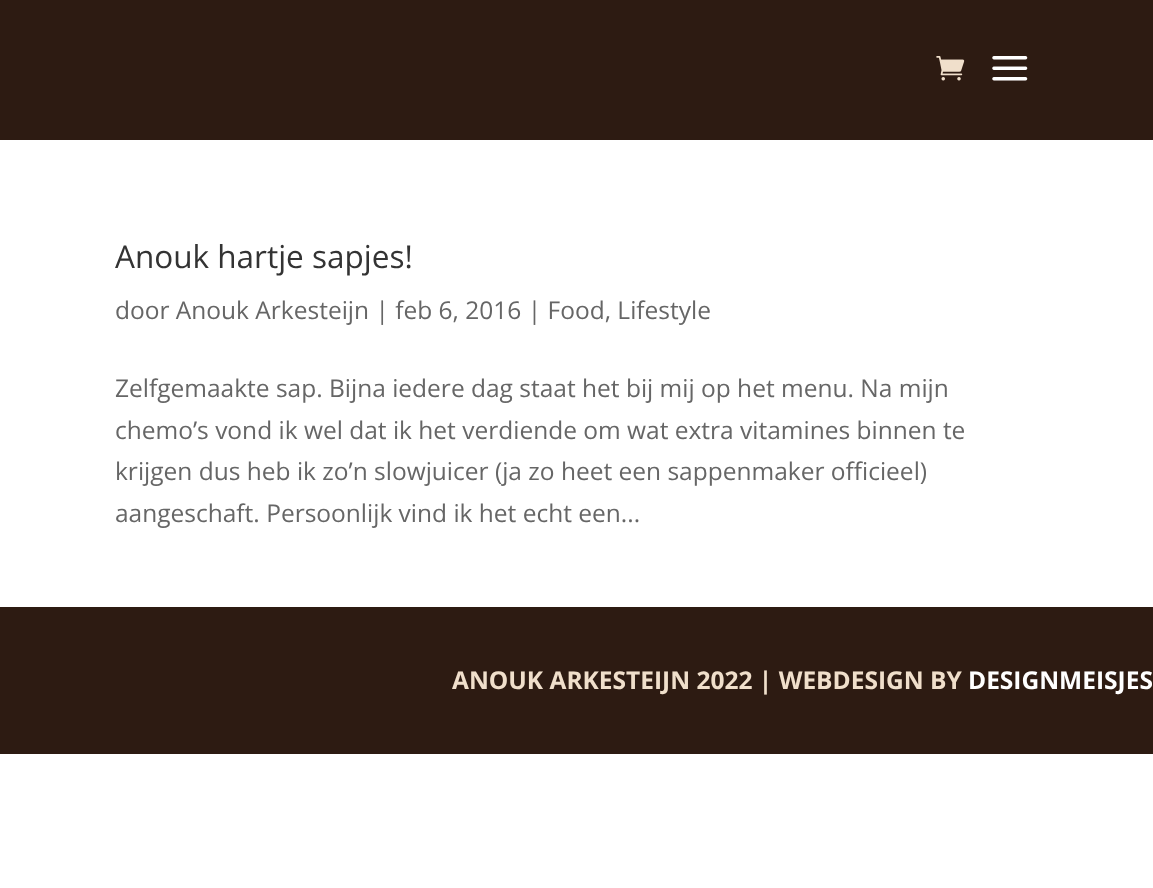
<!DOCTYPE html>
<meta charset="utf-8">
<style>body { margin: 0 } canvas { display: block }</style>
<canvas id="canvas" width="1153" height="888"></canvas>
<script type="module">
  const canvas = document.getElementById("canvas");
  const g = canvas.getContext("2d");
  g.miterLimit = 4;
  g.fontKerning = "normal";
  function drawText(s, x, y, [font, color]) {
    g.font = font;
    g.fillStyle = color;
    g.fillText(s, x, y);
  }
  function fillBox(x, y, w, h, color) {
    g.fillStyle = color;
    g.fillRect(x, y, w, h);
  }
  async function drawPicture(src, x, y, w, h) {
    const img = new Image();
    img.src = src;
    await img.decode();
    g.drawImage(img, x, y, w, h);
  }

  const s1 = ["31.5px Open Sans", "#333333"];
  const s2 = ["24.5px Open Sans", "#666666"];
  const s3 = ["bold 24.5px Open Sans", "#F0DFCB"];
  const s4 = ["bold 24.5px Open Sans", "#FFFFFF"];

  fillBox(0, 0, 1153, 888, "#FFFFFF");
  fillBox(0, 0, 1153, 140, "#2D1B12");
  await drawPicture("pic1.png", 936, 56, 29, 25);
  await drawPicture("pic2.png", 992, 56, 36, 25);
  drawText("Anouk hartje sapjes!", 115, 268, s1);
  drawText("door Anouk Arkesteijn | feb 6, 2016 | Food, Lifestyle", 115, 319, s2);
  drawText("Zelfgemaakte sap. Bijna iedere dag staat het bij mij op het menu. Na mijn", 115, 397, s2);
  drawText("chemo’s vond ik wel dat ik het verdiende om wat extra vitamines binnen te", 115, 439, s2);
  drawText("krijgen dus heb ik zo’n slowjuicer (ja zo heet een sappenmaker officieel)", 115, 480, s2);
  drawText("aangeschaft. Persoonlijk vind ik het echt een...", 115, 522, s2);
  fillBox(0, 607, 1153, 147, "#2D1B12");
  drawText("ANOUK ARKESTEIJN 2022 | WEBDESIGN BY", 452, 689, s3);
  drawText("DESIGNMEISJES", 968, 689, s4);
</script>
